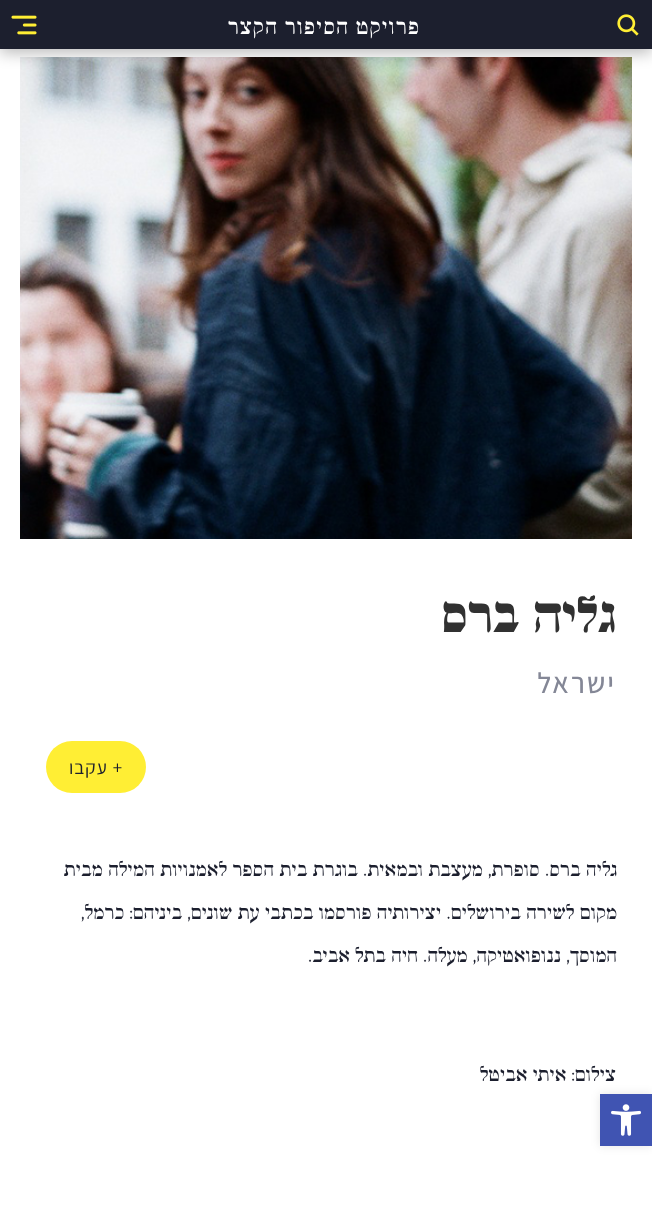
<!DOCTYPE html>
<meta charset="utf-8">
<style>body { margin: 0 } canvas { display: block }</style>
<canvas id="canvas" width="652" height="1206"></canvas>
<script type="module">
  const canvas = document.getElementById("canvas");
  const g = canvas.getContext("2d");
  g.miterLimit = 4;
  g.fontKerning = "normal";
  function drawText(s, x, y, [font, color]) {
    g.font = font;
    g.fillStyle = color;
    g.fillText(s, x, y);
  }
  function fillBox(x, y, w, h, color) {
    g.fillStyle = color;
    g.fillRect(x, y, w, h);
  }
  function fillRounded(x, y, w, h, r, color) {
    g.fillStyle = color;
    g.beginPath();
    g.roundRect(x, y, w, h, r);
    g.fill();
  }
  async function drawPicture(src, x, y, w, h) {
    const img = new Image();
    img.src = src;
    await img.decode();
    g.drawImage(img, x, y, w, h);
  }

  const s1 = ["500 24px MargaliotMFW", "#FFFFFF"];
  const s2 = ["bold 56px MargaliotMFW", "#313131"];
  const s3 = ["500 29px Assistant", "#848796"];
  const s4 = ["19px Assistant", "#1C1F2E"];
  const s5 = ["500 21.6px MargaliotMFW", "#1C1F2E"];

  fillBox(0, 0, 652, 1206, "#FFFFFF");
  await drawPicture("pic3.png", 20, 57, 612, 482);
  g.fillStyle = "rgba(0, 0, 0, 0.27)";
  g.filter = "blur(7.5px)";
  g.beginPath();
  g.rect(0, 4, 652, 49);
  g.fill();
  g.filter = "none";
  fillBox(0, 0, 652, 49, "#1C1F2E");
  await drawPicture("pic1.png", 617, 14, 22, 22);
  g.letterSpacing = "1px";
  g.direction = "rtl";
  drawText("פרויקט הסיפור הקצר", 420, 34, s1);
  await drawPicture("pic2.png", 11, 15, 26, 20);
  g.letterSpacing = "0px";
  drawText("גליה ברס", 616, 632, s2);
  g.letterSpacing = "2px";
  drawText("ישראל", 616, 693, s3);
  fillRounded(46, 741, 100, 52, 26, "#FFEE34");
  g.letterSpacing = "1px";
  drawText("+ עקבו", 123, 774, s4);
  g.letterSpacing = "0px";
  drawText("גליה ברס. סופרת, מעצבת ובמאית. בוגרת בית הספר לאמנויות המילה מבית", 617, 876, s5);
  drawText("מקום לשירה בירושלים. יצירותיה פורסמו בכתבי עת שונים, ביניהם: כרמל,", 617, 919, s5);
  drawText("המוסך, ננופואטיקה, מעלה. חיה בתל אביב.", 617, 962, s5);
  drawText("צילום: איתי אביטל", 616, 1081, s5);
  g.fillStyle = "rgba(0, 0, 0, 0.1)";
  g.filter = "blur(5px)";
  g.beginPath();
  g.rect(600, 1094, 52, 52);
  g.fill();
  g.filter = "none";
  fillBox(600, 1094, 52, 52, "#4054B2");
  await drawPicture("pic4.png", 611, 1104, 30, 32);
</script>
